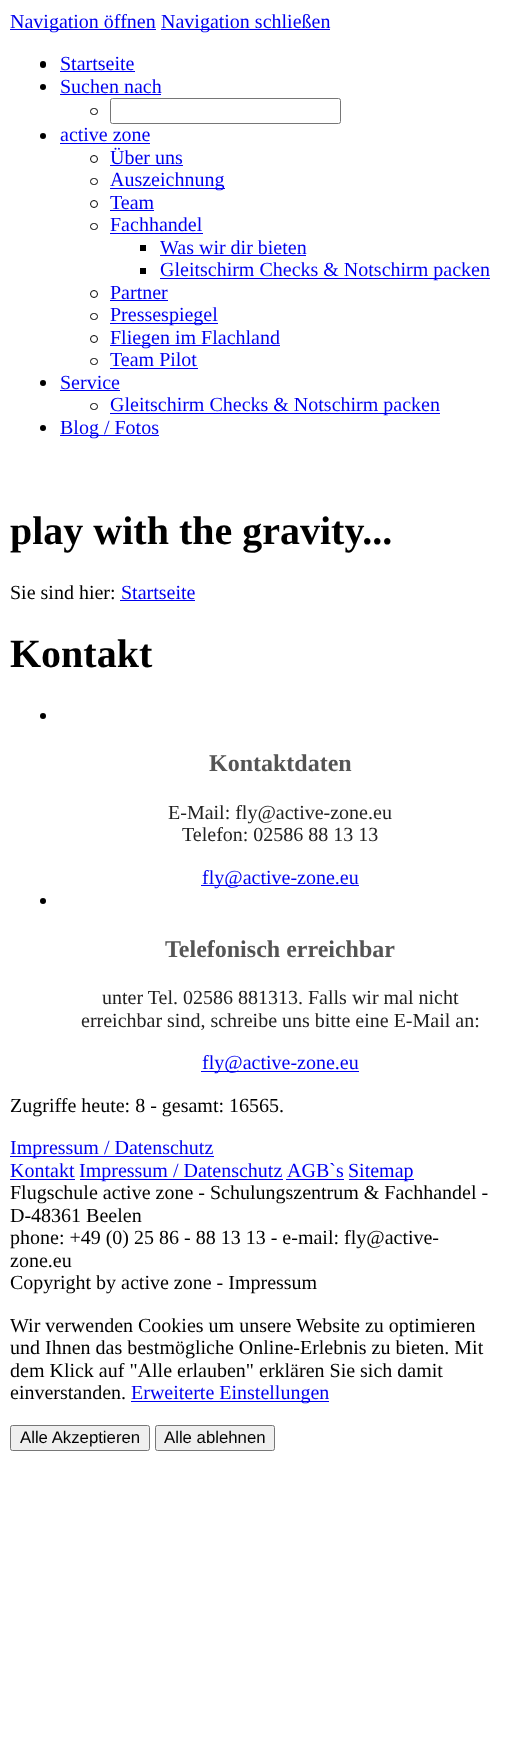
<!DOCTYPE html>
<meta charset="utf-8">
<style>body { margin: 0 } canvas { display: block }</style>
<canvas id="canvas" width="510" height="1737"></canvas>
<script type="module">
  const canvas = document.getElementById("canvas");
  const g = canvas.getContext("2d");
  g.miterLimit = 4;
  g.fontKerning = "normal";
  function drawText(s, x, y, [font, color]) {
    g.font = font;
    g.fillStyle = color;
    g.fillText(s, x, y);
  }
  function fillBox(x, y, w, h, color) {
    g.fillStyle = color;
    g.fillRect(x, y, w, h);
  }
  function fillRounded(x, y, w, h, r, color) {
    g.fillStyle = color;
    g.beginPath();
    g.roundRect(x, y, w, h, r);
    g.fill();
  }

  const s1 = ["20px Liberation Serif", "#0000EE"];
  const s2 = ["bold 40px Liberation Serif", "#000000"];
  const s3 = ["20px Liberation Serif", "#000000"];
  const s4 = ["bold 24px Liberation Serif", "#555555"];
  const s5 = ["20px Liberation Serif", "#222222"];
  const s6 = ["16.75px Liberation Sans", "#000000"];

  fillBox(0, 0, 510, 1737, "#FFFFFF");
  fillBox(10, 29, 146, 1, "#0000EE");
  drawText("Navigation öffnen", 10, 28, s1);
  fillBox(161, 29, 169, 1, "#0000EE");
  drawText("Navigation schließen", 161, 28, s1);
  fillRounded(40, 61, 6, 7, 3, "#000000");
  drawText("Startseite", 60, 70, s1);
  fillBox(60, 71, 75, 1, "#0000EE");
  g.fillStyle = "#000000";
  g.beginPath();
  g.arc(43, 87, 3, 0, Math.PI * 2);
  g.fill();
  drawText("Suchen nach", 60, 93, s1);
  fillBox(60, 94, 101, 1, "#0000EE");
  g.beginPath();
  g.roundRect(90.5, 108.5, 7, 6, 3);
  g.strokeStyle = "#000000";
  g.stroke();
  g.beginPath();
  g.roundRect(110.5, 98.5, 230, 25, 2);
  g.strokeStyle = "#767676";
  g.stroke();
  g.fillStyle = "#000000";
  g.beginPath();
  g.arc(43, 136, 3, 0, Math.PI * 2);
  g.fill();
  drawText("active zone", 60, 141, s1);
  fillBox(60, 143, 90, 1, "#0000EE");
  g.beginPath();
  g.arc(94, 159, 3.5, 0, Math.PI * 2);
  g.strokeStyle = "#000000";
  g.stroke();
  drawText("Über uns", 110, 164, s1);
  fillBox(110, 165, 73, 1, "#0000EE");
  g.beginPath();
  g.roundRect(90.5, 178.5, 7, 6, 3);
  g.stroke();
  fillBox(110, 188, 115, 1, "#0000EE");
  drawText("Auszeichnung", 110, 186, s1);
  g.beginPath();
  g.arc(94, 204, 3.5, 0, Math.PI * 2);
  g.stroke();
  drawText("Team", 110, 209, s1);
  fillBox(110, 210, 44, 1, "#0000EE");
  g.beginPath();
  g.roundRect(90.5, 223.5, 7, 6, 3);
  g.stroke();
  drawText("Fachhandel", 110, 231, s1);
  fillBox(110, 233, 93, 1, "#0000EE");
  fillBox(140, 245, 6, 6, "#000000");
  drawText("Was wir dir bieten", 160, 254, s1);
  fillBox(160, 255, 146, 1, "#0000EE");
  fillBox(140, 268, 6, 6, "#000000");
  fillBox(160, 278, 330, 1, "#0000EE");
  drawText("Gleitschirm Checks & Notschirm packen", 160, 276, s1);
  g.beginPath();
  g.arc(94, 294, 3.5, 0, Math.PI * 2);
  g.stroke();
  drawText("Partner", 110, 299, s1);
  fillBox(110, 300, 58, 1, "#0000EE");
  g.beginPath();
  g.roundRect(90.5, 313.5, 7, 6, 3);
  g.stroke();
  fillBox(110, 323, 108, 1, "#0000EE");
  drawText("Pressespiegel", 110, 321, s1);
  g.beginPath();
  g.arc(94, 339, 3.5, 0, Math.PI * 2);
  g.stroke();
  fillBox(110, 345, 170, 1, "#0000EE");
  drawText("Fliegen im Flachland", 110, 344, s1);
  g.beginPath();
  g.roundRect(90.5, 358.5, 7, 6, 3);
  g.stroke();
  drawText("Team Pilot", 110, 366, s1);
  fillBox(110, 368, 88, 1, "#0000EE");
  g.fillStyle = "#000000";
  g.beginPath();
  g.arc(43, 383, 3, 0, Math.PI * 2);
  g.fill();
  drawText("Service", 60, 389, s1);
  fillBox(60, 390, 60, 1, "#0000EE");
  g.beginPath();
  g.roundRect(90.5, 403.5, 7, 6, 3);
  g.stroke();
  fillBox(110, 413, 330, 1, "#0000EE");
  drawText("Gleitschirm Checks & Notschirm packen", 110, 411, s1);
  g.fillStyle = "#000000";
  g.beginPath();
  g.arc(43, 428, 3, 0, Math.PI * 2);
  g.fill();
  fillBox(60, 435, 99, 1, "#0000EE");
  drawText("Blog / Fotos", 60, 434, s1);
  drawText("play with the gravity...", 10, 544, s2);
  drawText("Sie sind hier:", 10, 599, s3);
  drawText("Startseite", 121, 599, s1);
  fillBox(120, 600, 75, 1, "#0000EE");
  drawText("Kontakt", 10, 667, s2);
  g.beginPath();
  g.arc(43, 716, 3, 0, Math.PI * 2);
  g.fill();
  drawText("Kontaktdaten", 209, 771, s4);
  drawText("E-Mail: fly@active-zone.eu", 168, 819, s5);
  drawText("Telefon: 02586 88 13 13", 182, 841, s5);
  fillBox(201, 885, 158, 1, "#0000EE");
  drawText("fly@active-zone.eu", 202, 884, s1);
  g.fillStyle = "#000000";
  g.beginPath();
  g.arc(43, 901, 3, 0, Math.PI * 2);
  g.fill();
  drawText("Telefonisch erreichbar", 165, 957, s4);
  drawText("unter Tel. 02586 881313. Falls wir mal nicht", 102, 1004, s5);
  drawText("erreichbar sind, schreibe uns bitte eine E-Mail an:", 81, 1027, s5);
  fillBox(201, 1071, 158, 1, "#0000EE");
  drawText("fly@active-zone.eu", 202, 1069, s1);
  drawText("Zugriffe heute: 8 - gesamt: 16565.", 10, 1112, s3);
  fillBox(10, 1156, 204, 1, "#0000EE");
  drawText("Impressum / Datenschutz", 10, 1154, s1);
  drawText("Kontakt", 10, 1177, s1);
  fillBox(10, 1179, 65, 1, "#0000EE");
  fillBox(80, 1179, 203, 1, "#0000EE");
  drawText("Impressum / Datenschutz", 79, 1177, s1);
  drawText("AGB`s", 287, 1177, s1);
  fillBox(286, 1179, 58, 1, "#0000EE");
  fillBox(349, 1179, 65, 1, "#0000EE");
  drawText("Sitemap", 348, 1177, s1);
  drawText("Flugschule active zone - Schulungszentrum & Fachhandel -", 10, 1199, s3);
  drawText("D-48361 Beelen", 10, 1222, s3);
  drawText("phone: +49 (0) 25 86 - 88 13 13 - e-mail: fly@active-", 10, 1244, s3);
  drawText("zone.eu", 10, 1267, s3);
  drawText("Copyright by active zone - Impressum", 10, 1289, s3);
  drawText("Wir verwenden Cookies um unsere Website zu optimieren", 10, 1332, s3);
  drawText("und Ihnen das bestmögliche Online-Erlebnis zu bieten. Mit", 10, 1354, s3);
  drawText("dem Klick auf \"Alle erlauben\" erklären Sie sich damit", 10, 1377, s3);
  drawText("einverstanden.", 10, 1399, s3);
  fillBox(131, 1401, 198, 1, "#0000EE");
  drawText("Erweiterte Einstellungen", 131, 1399, s1);
  g.fillStyle = "#EFEFEF";
  g.beginPath();
  g.roundRect(10.5, 1425.5, 139, 25, 2);
  g.fill();
  g.strokeStyle = "#767676";
  g.stroke();
  drawText("Alle Akzeptieren", 20, 1443, s6);
  g.fillStyle = "#EFEFEF";
  g.beginPath();
  g.roundRect(155.5, 1425.5, 119, 25, 2);
  g.fill();
  g.stroke();
  drawText("Alle ablehnen", 164, 1443, s6);
</script>
